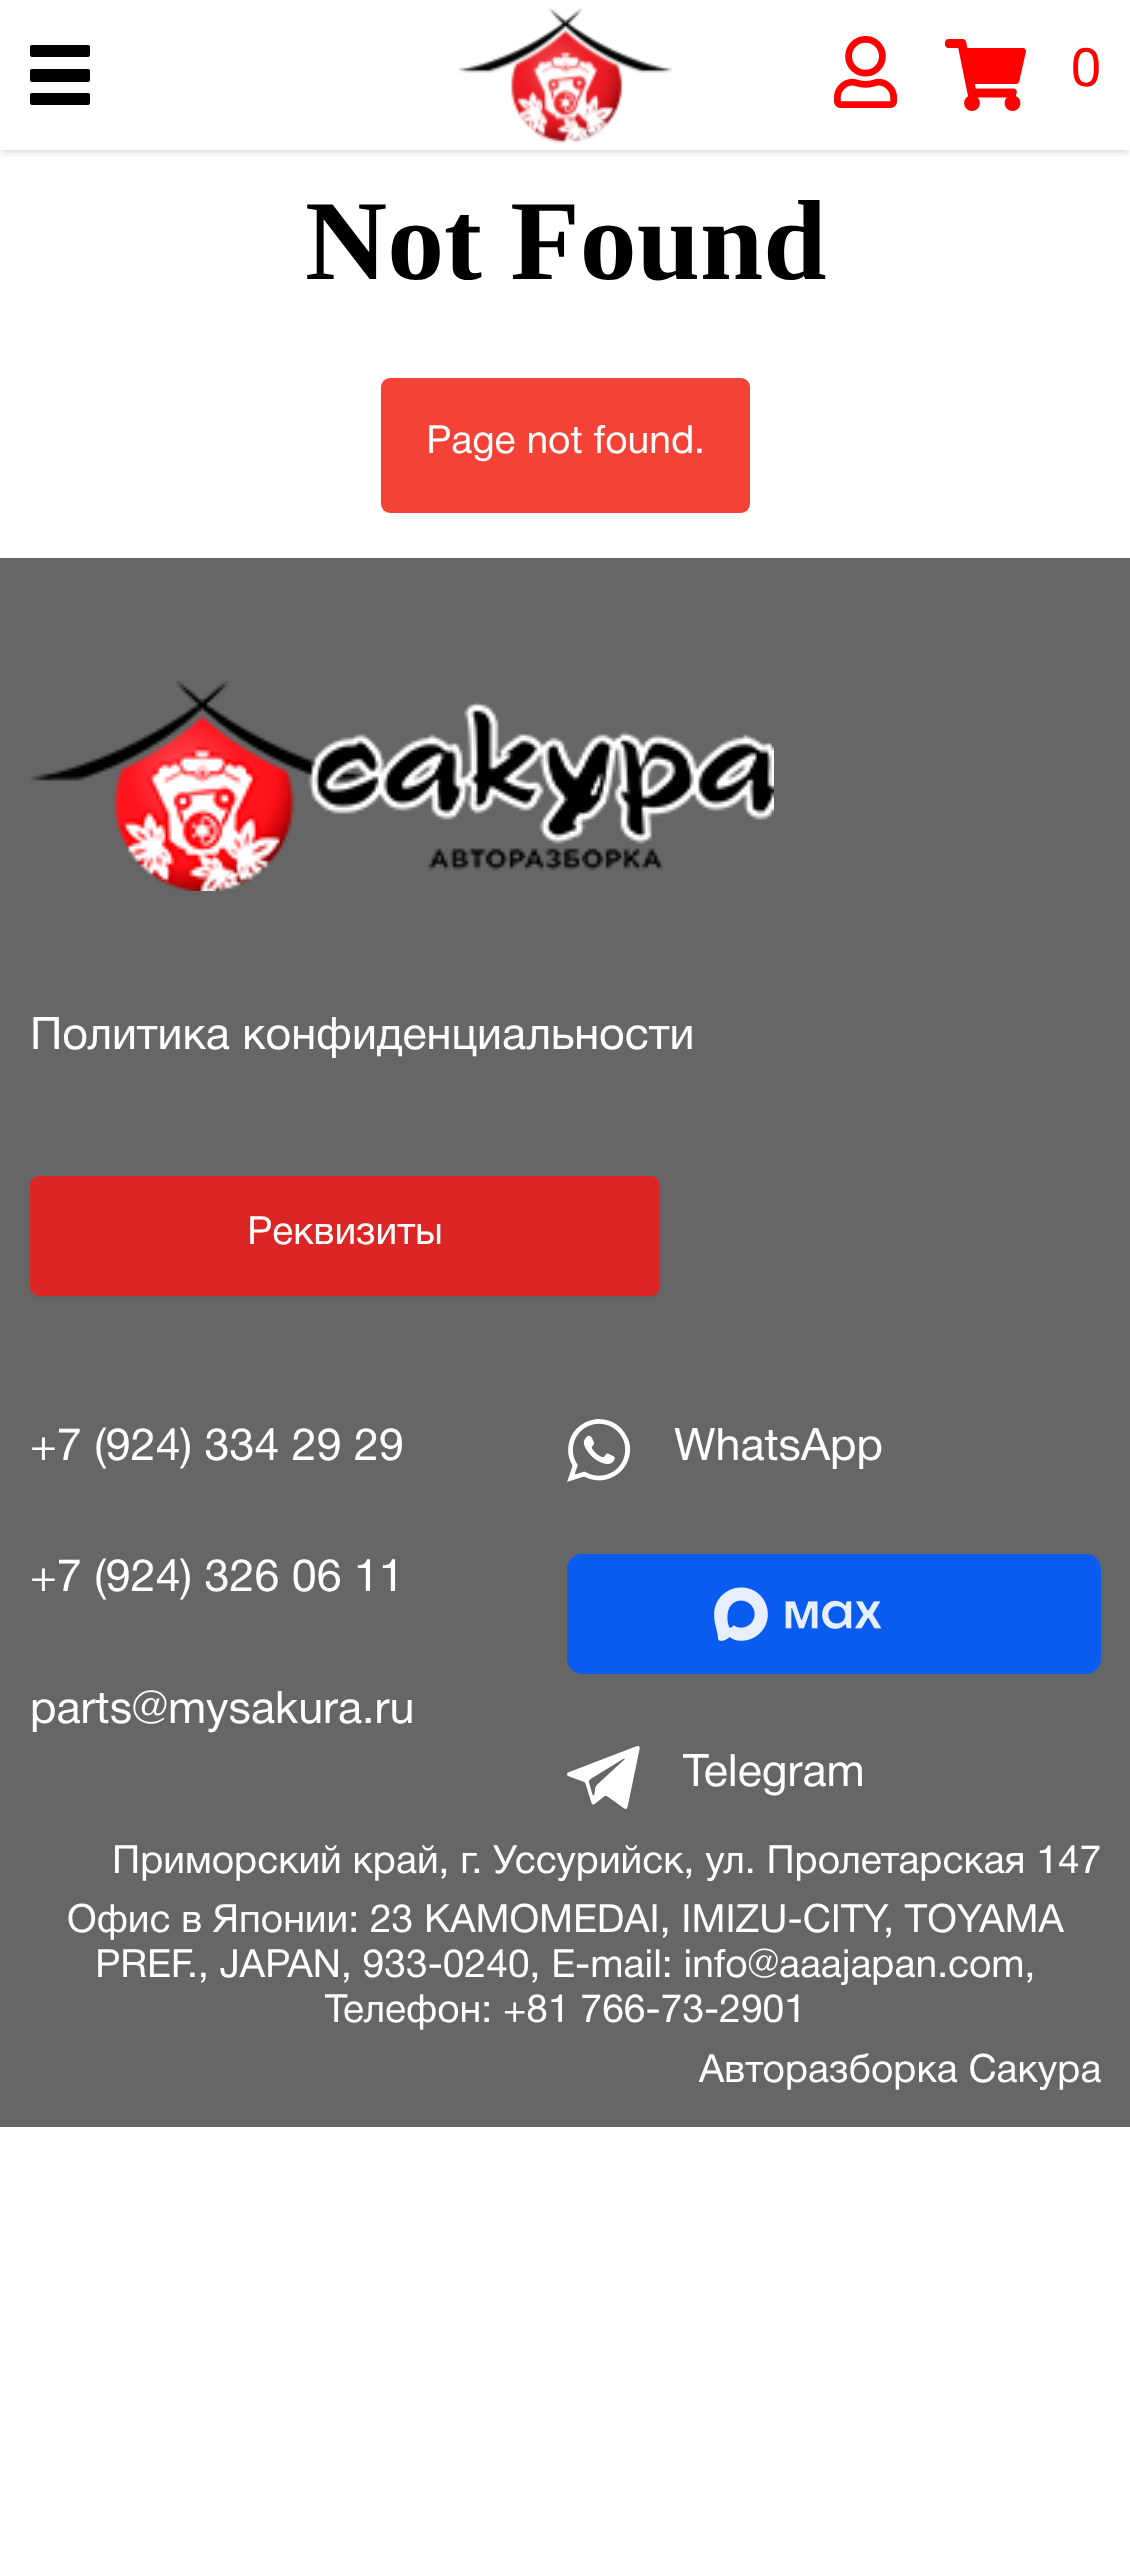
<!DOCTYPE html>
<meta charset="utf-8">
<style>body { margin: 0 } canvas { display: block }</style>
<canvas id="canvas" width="1130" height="2575"></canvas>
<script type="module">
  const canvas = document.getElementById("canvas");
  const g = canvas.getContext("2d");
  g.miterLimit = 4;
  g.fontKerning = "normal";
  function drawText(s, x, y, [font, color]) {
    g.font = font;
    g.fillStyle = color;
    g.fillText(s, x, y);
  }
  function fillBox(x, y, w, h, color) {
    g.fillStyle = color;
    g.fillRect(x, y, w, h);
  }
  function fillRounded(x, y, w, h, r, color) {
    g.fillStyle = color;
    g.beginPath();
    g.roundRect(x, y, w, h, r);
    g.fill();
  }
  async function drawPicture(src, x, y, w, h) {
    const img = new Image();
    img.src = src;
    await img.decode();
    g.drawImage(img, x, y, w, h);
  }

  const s1 = ["54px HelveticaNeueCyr", "#FF0000"];
  const s2 = ["bold 113.75px Liberation Serif", "#000000"];
  const s3 = ["39px HelveticaNeueCyr", "#FFFFFF"];
  const s4 = ["44.8px HelveticaNeueCyr", "#FFFFFF"];

  fillBox(0, 0, 1130, 2575, "#FFFFFF");
  g.save();
  g.beginPath();
  g.rect(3, 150, 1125, 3);
  g.clip();
  g.fillStyle = "rgba(0, 0, 0, 0.1)";
  g.filter = "blur(3px)";
  g.beginPath();
  g.rect(3, 6, 1125, 144);
  g.fill();
  g.filter = "none";
  g.restore();
  g.save();
  g.beginPath();
  g.rect(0, 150, 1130, 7);
  g.clip();
  g.fillStyle = "rgba(0, 0, 0, 0.1)";
  g.filter = "blur(4.5px)";
  g.beginPath();
  g.rect(0, 3, 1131, 150);
  g.fill();
  g.filter = "none";
  g.restore();
  fillRounded(30, 45, 60, 12, 2, "#000000");
  fillRounded(30, 69, 60, 13, 2, "#000000");
  fillRounded(30, 93, 60, 12, 2, "#000000");
  await drawPicture("pic1.png", 459, 8, 213, 136);
  await drawPicture("pic2.png", 834, 36, 63, 72);
  await drawPicture("pic3.png", 945, 39, 81, 72);
  drawText("0", 1071, 86, s1);
  drawText("Not Found", 305, 279, s2);
  fillRounded(381, 378, 369, 135, 9, "#F44336");
  drawText("Page not found.", 426, 453, s3);
  fillBox(0, 558, 1130, 1569, "#666666");
  await drawPicture("pic4.png", 30, 681, 744, 210);
  drawText("Политика конфиденциальности", 30, 1049, s4);
  g.fillStyle = "rgba(0, 0, 0, 0.1)";
  g.filter = "blur(3px)";
  g.beginPath();
  g.roundRect(33, 1182, 624, 114, 6);
  g.fill();
  g.filter = "none";
  fillRounded(30, 1176, 630, 120, 9, "#DC2626");
  drawText("Реквизиты", 247, 1244, s3);
  drawText("+7 (924) 334 29 29", 30, 1460, s4);
  drawText("+7 (924) 326 06 11", 30, 1591, s4);
  drawText("parts@mysakura.ru", 30, 1723, s4);
  await drawPicture("pic5.png", 567, 1419, 64, 63);
  drawText("WhatsApp", 674, 1460, s4);
  fillRounded(567, 1554, 534, 120, 15, "#0A5CF0");
  await drawPicture("pic6.png", 714, 1587, 168, 54);
  await drawPicture("pic7.png", 567, 1746, 73, 63);
  drawText("Telegram", 683, 1786, s4);
  drawText("Приморский край, г. Уссурийск, ул. Пролетарская 147", 112, 1873, s3);
  drawText("Офис в Японии: 23 KAMOMEDAI, IMIZU-CITY, TOYAMA", 67, 1932, s3);
  drawText("PREF., JAPAN, 933-0240, E-mail: info@aaajapan.com,", 95, 1977, s3);
  drawText("Телефон: +81 766-73-2901", 325, 2022, s3);
  drawText("Авторазборка Сакура", 699, 2082, s3);
</script>
